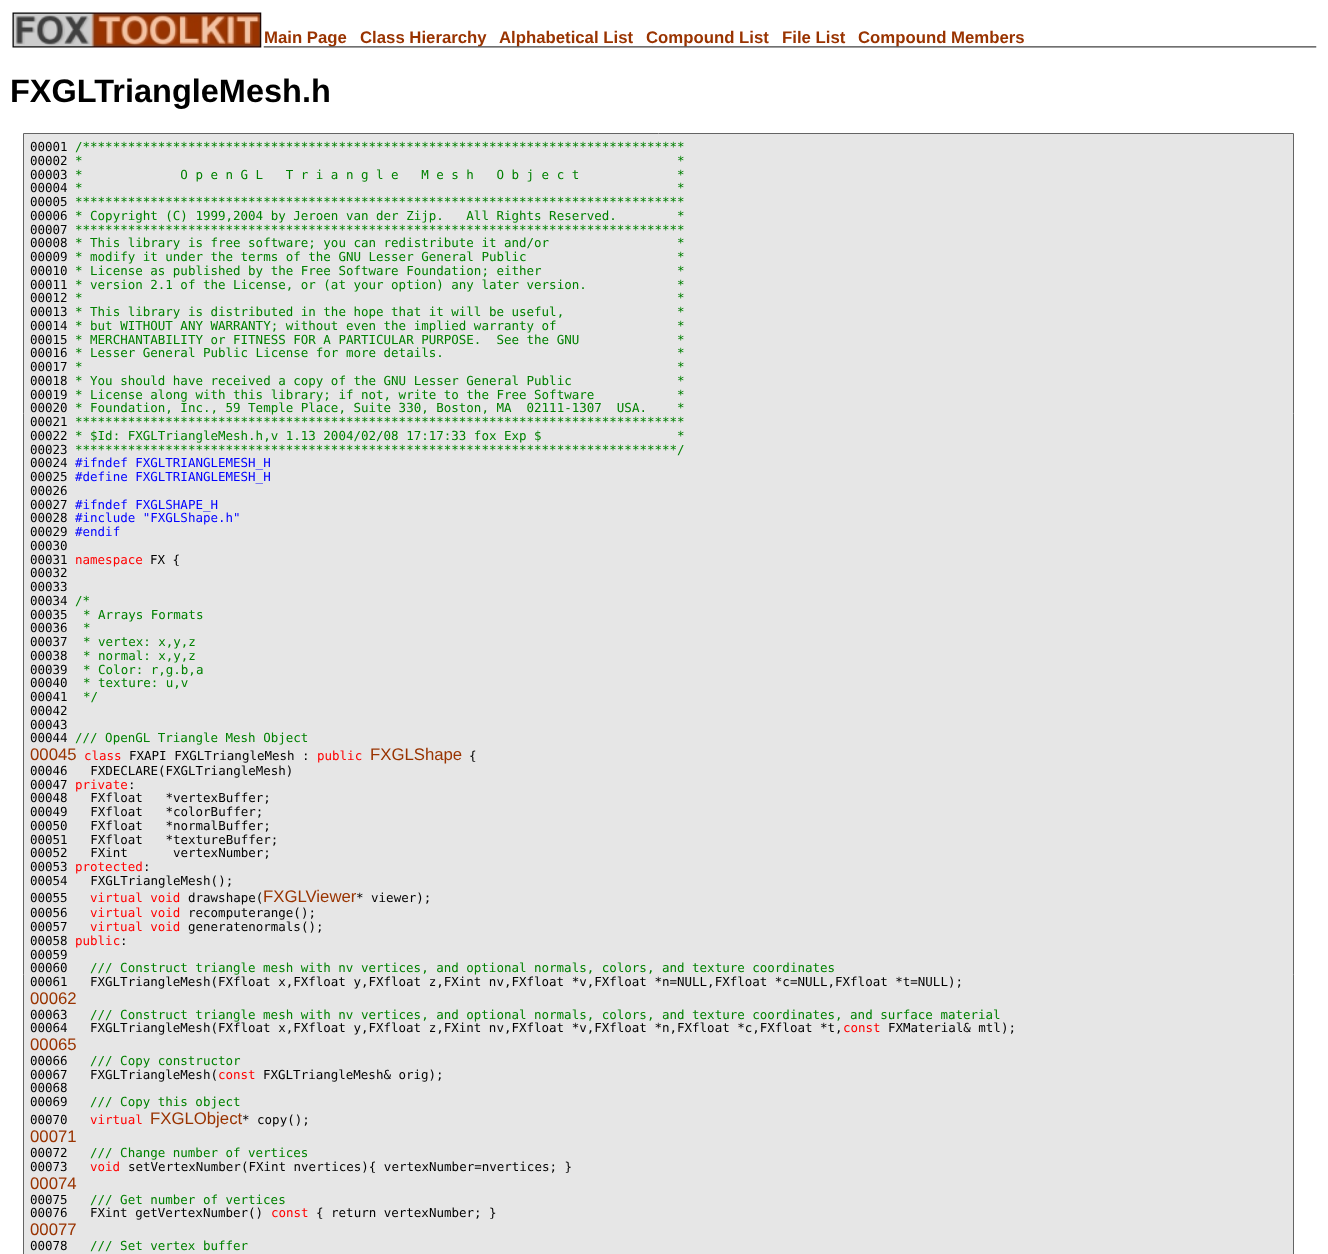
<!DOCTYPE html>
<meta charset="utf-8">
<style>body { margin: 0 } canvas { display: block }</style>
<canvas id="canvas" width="1328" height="1254"></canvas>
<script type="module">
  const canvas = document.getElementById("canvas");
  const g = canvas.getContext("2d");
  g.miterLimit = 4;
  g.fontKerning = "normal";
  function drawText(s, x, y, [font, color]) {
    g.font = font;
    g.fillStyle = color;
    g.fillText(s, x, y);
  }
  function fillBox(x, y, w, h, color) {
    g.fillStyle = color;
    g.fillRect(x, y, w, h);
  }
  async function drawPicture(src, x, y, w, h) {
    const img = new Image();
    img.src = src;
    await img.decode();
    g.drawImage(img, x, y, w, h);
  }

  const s1 = ["bold 16.75px Liberation Sans", "#993300"];
  const s2 = ["bold 32.5px Liberation Sans", "#000000"];
  const s3 = ["12.5px DejaVu Sans Mono", "#000000"];
  const s4 = ["12.5px DejaVu Sans Mono", "#008000"];
  const s5 = ["12.5px DejaVu Sans Mono", "#0000FF"];
  const s6 = ["12.5px DejaVu Sans Mono", "#FF0000"];
  const s7 = ["16.75px Liberation Sans", "#993300"];

  fillBox(0, 0, 1328, 1254, "#FFFFFF");
  await drawPicture("pic1.png", 12, 12, 250, 36);
  drawText("Main Page", 264, 43, s1);
  drawText("Class Hierarchy", 360, 43, s1);
  drawText("Alphabetical List", 499, 43, s1);
  drawText("Compound List", 646, 43, s1);
  drawText("File List", 782, 43, s1);
  drawText("Compound Members", 858, 43, s1);
  await drawPicture("pic2.png", 263, 46, 1054, 2);
  drawText("FXGLTriangleMesh.h", 10, 102, s2);
  g.fillStyle = "#E6E6E6";
  g.beginPath();
  g.rect(23.5, 133.5, 1270, 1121);
  g.fill();
  g.strokeStyle = "#646464";
  g.stroke();
  drawText("00001", 30, 151, s3);
  drawText("/********************************************************************************", 75, 151, s4);
  drawText("00002", 30, 165, s3);
  drawText("*                                                                               *", 75, 165, s4);
  drawText("00003", 30, 179, s3);
  drawText("*             O p e n G L   T r i a n g l e   M e s h   O b j e c t             *", 75, 179, s4);
  drawText("00004", 30, 192, s3);
  drawText("*                                                                               *", 75, 192, s4);
  drawText("00005", 30, 206, s3);
  drawText("*********************************************************************************", 75, 206, s4);
  drawText("00006", 30, 220, s3);
  drawText("* Copyright (C) 1999,2004 by Jeroen van der Zijp.   All Rights Reserved.        *", 75, 220, s4);
  drawText("00007", 30, 234, s3);
  drawText("*********************************************************************************", 75, 234, s4);
  drawText("00008", 30, 247, s3);
  drawText("* This library is free software; you can redistribute it and/or                 *", 75, 247, s4);
  drawText("00009", 30, 261, s3);
  drawText("* modify it under the terms of the GNU Lesser General Public                    *", 75, 261, s4);
  drawText("00010", 30, 275, s3);
  drawText("* License as published by the Free Software Foundation; either                  *", 75, 275, s4);
  drawText("00011", 30, 289, s3);
  drawText("* version 2.1 of the License, or (at your option) any later version.            *", 75, 289, s4);
  drawText("00012", 30, 302, s3);
  drawText("*                                                                               *", 75, 302, s4);
  drawText("00013", 30, 316, s3);
  drawText("* This library is distributed in the hope that it will be useful,               *", 75, 316, s4);
  drawText("00014", 30, 330, s3);
  drawText("* but WITHOUT ANY WARRANTY; without even the implied warranty of                *", 75, 330, s4);
  drawText("00015", 30, 344, s3);
  drawText("* MERCHANTABILITY or FITNESS FOR A PARTICULAR PURPOSE.  See the GNU             *", 75, 344, s4);
  drawText("00016", 30, 357, s3);
  drawText("* Lesser General Public License for more details.                               *", 75, 357, s4);
  drawText("00017", 30, 371, s3);
  drawText("*                                                                               *", 75, 371, s4);
  drawText("00018", 30, 385, s3);
  drawText("* You should have received a copy of the GNU Lesser General Public              *", 75, 385, s4);
  drawText("00019", 30, 399, s3);
  drawText("* License along with this library; if not, write to the Free Software           *", 75, 399, s4);
  drawText("00020", 30, 412, s3);
  drawText("* Foundation, Inc., 59 Temple Place, Suite 330, Boston, MA  02111-1307  USA.    *", 75, 412, s4);
  drawText("00021", 30, 426, s3);
  drawText("*********************************************************************************", 75, 426, s4);
  drawText("00022", 30, 440, s3);
  drawText("* $Id: FXGLTriangleMesh.h,v 1.13 2004/02/08 17:17:33 fox Exp $                  *", 75, 440, s4);
  drawText("00023", 30, 454, s3);
  drawText("********************************************************************************/", 75, 454, s4);
  drawText("00024", 30, 467, s3);
  drawText("#ifndef FXGLTRIANGLEMESH_H", 75, 467, s5);
  drawText("00025", 30, 481, s3);
  drawText("#define FXGLTRIANGLEMESH_H", 75, 481, s5);
  drawText("00026", 30, 495, s3);
  drawText("00027", 30, 509, s3);
  drawText("#ifndef FXGLSHAPE_H", 75, 509, s5);
  drawText("00028", 30, 522, s3);
  drawText("#include \"FXGLShape.h\"", 75, 522, s5);
  drawText("00029", 30, 536, s3);
  drawText("#endif", 75, 536, s5);
  drawText("00030", 30, 550, s3);
  drawText("00031", 30, 564, s3);
  drawText("namespace", 75, 564, s6);
  drawText("FX {", 150, 564, s3);
  drawText("00032", 30, 577, s3);
  drawText("00033", 30, 591, s3);
  drawText("00034", 30, 605, s3);
  drawText("/*", 75, 605, s4);
  drawText("00035", 30, 619, s3);
  drawText("* Arrays Formats", 83, 619, s4);
  drawText("00036", 30, 632, s3);
  drawText("*", 83, 632, s4);
  drawText("00037", 30, 646, s3);
  drawText("* vertex: x,y,z", 83, 646, s4);
  drawText("00038", 30, 660, s3);
  drawText("* normal: x,y,z", 83, 660, s4);
  drawText("00039", 30, 674, s3);
  drawText("* Color: r,g.b,a", 83, 674, s4);
  drawText("00040", 30, 687, s3);
  drawText("* texture: u,v", 83, 687, s4);
  drawText("00041", 30, 701, s3);
  drawText("*/", 83, 701, s4);
  drawText("00042", 30, 715, s3);
  drawText("00043", 30, 729, s3);
  drawText("00044", 30, 742, s3);
  drawText("/// OpenGL Triangle Mesh Object", 75, 742, s4);
  drawText("00045", 30, 760, s7);
  drawText("class", 84, 760, s6);
  drawText("FXAPI FXGLTriangleMesh :", 129, 760, s3);
  drawText("public", 317, 760, s6);
  drawText("FXGLShape", 370, 760, s7);
  drawText("{", 469, 760, s3);
  drawText("00046   FXDECLARE(FXGLTriangleMesh)", 30, 775, s3);
  drawText("00047", 30, 789, s3);
  drawText("private", 75, 789, s6);
  drawText(":", 128, 789, s3);
  drawText("00048   FXfloat   *vertexBuffer;", 30, 802, s3);
  drawText("00049   FXfloat   *colorBuffer;", 30, 816, s3);
  drawText("00050   FXfloat   *normalBuffer;", 30, 830, s3);
  drawText("00051   FXfloat   *textureBuffer;", 30, 844, s3);
  drawText("00052   FXint      vertexNumber;", 30, 857, s3);
  drawText("00053", 30, 871, s3);
  drawText("protected", 75, 871, s6);
  drawText(":", 143, 871, s3);
  drawText("00054   FXGLTriangleMesh();", 30, 885, s3);
  drawText("00055", 30, 902, s3);
  drawText("virtual void", 90, 902, s6);
  drawText("drawshape(", 188, 902, s3);
  drawText("FXGLViewer", 263, 902, s7);
  drawText("* viewer);", 356, 902, s3);
  drawText("00056", 30, 917, s3);
  drawText("virtual void", 90, 917, s6);
  drawText("recomputerange();", 188, 917, s3);
  drawText("00057", 30, 931, s3);
  drawText("virtual void", 90, 931, s6);
  drawText("generatenormals();", 188, 931, s3);
  drawText("00058", 30, 945, s3);
  drawText("public", 75, 945, s6);
  drawText(":", 120, 945, s3);
  drawText("00059", 30, 959, s3);
  drawText("00060", 30, 972, s3);
  drawText("/// Construct triangle mesh with nv vertices, and optional normals, colors, and texture coordinates", 90, 972, s4);
  drawText("00061", 30, 986, s3);
  drawText("FXGLTriangleMesh(FXfloat x,FXfloat y,FXfloat z,FXint nv,FXfloat *v,FXfloat *n=NULL,FXfloat *c=NULL,FXfloat *t=NULL);", 90, 986, s3);
  drawText("00062", 30, 1004, s7);
  drawText("00063", 30, 1019, s3);
  drawText("/// Construct triangle mesh with nv vertices, and optional normals, colors, and texture coordinates, and surface material", 90, 1019, s4);
  drawText("00064", 30, 1032, s3);
  drawText("FXGLTriangleMesh(FXfloat x,FXfloat y,FXfloat z,FXint nv,FXfloat *v,FXfloat *n,FXfloat *c,FXfloat *t,", 90, 1032, s3);
  drawText("const", 843, 1032, s6);
  drawText("FXMaterial& mtl);", 888, 1032, s3);
  drawText("00065", 30, 1050, s7);
  drawText("00066", 30, 1065, s3);
  drawText("/// Copy constructor", 90, 1065, s4);
  drawText("00067", 30, 1079, s3);
  drawText("FXGLTriangleMesh(", 90, 1079, s3);
  drawText("const", 218, 1079, s6);
  drawText("FXGLTriangleMesh& orig);", 263, 1079, s3);
  drawText("00068", 30, 1092, s3);
  drawText("00069", 30, 1106, s3);
  drawText("/// Copy this object", 90, 1106, s4);
  drawText("00070", 30, 1124, s3);
  drawText("virtual", 90, 1124, s6);
  drawText("FXGLObject", 150, 1124, s7);
  drawText("* copy();", 242, 1124, s3);
  drawText("00071", 30, 1142, s7);
  drawText("00072", 30, 1157, s3);
  drawText("/// Change number of vertices", 90, 1157, s4);
  drawText("00073", 30, 1171, s3);
  drawText("void", 90, 1171, s6);
  drawText("setVertexNumber(FXint nvertices){ vertexNumber=nvertices; }", 128, 1171, s3);
  drawText("00074", 30, 1189, s7);
  drawText("00075", 30, 1204, s3);
  drawText("/// Get number of vertices", 90, 1204, s4);
  drawText("00076", 30, 1217, s3);
  drawText("FXint getVertexNumber()", 90, 1217, s3);
  drawText("const", 271, 1217, s6);
  drawText("{ return vertexNumber; }", 316, 1217, s3);
  drawText("00077", 30, 1235, s7);
  drawText("00078", 30, 1250, s3);
  drawText("/// Set vertex buffer", 90, 1250, s4);
</script>
